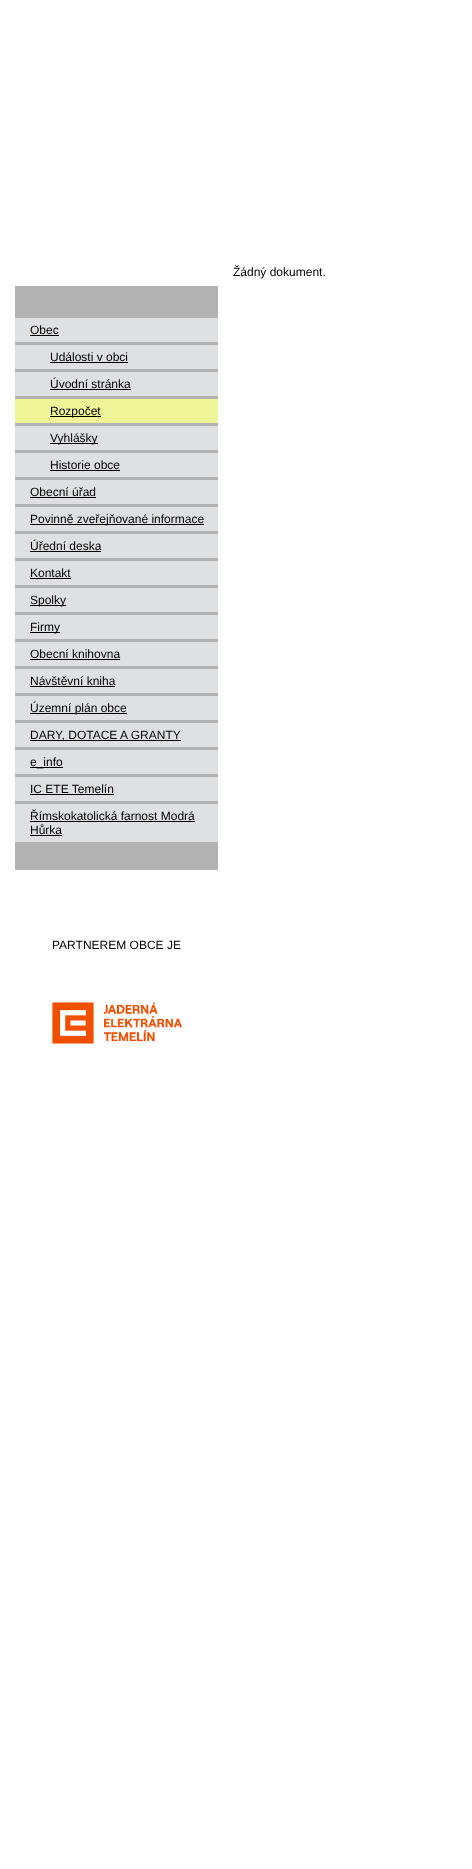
<!DOCTYPE html>
<meta charset="utf-8">
<style>body { margin: 0 } canvas { display: block }</style>
<canvas id="canvas" width="472" height="1869"></canvas>
<script type="module">
  const canvas = document.getElementById("canvas");
  const g = canvas.getContext("2d");
  g.miterLimit = 4;
  g.fontKerning = "normal";
  function drawText(s, x, y, [font, color]) {
    g.font = font;
    g.fillStyle = color;
    g.fillText(s, x, y);
  }
  function fillBox(x, y, w, h, color) {
    g.fillStyle = color;
    g.fillRect(x, y, w, h);
  }
  async function drawPicture(src, x, y, w, h) {
    const img = new Image();
    img.src = src;
    await img.decode();
    g.drawImage(img, x, y, w, h);
  }

  const s1 = ["12px Liberation Sans", "#000000"];

  fillBox(0, 0, 472, 1869, "#FFFFFF");
  drawText("Žádný dokument.", 233, 276, s1);
  fillBox(15, 286, 203, 584, "#B2B2B2");
  fillBox(15, 318, 203, 24, "#DEE0E1");
  drawText("Obec", 30, 334, s1);
  fillBox(30, 335, 29, 1, "#000000");
  fillBox(15, 345, 203, 24, "#DEE0E1");
  drawText("Události v obci", 50, 361, s1);
  fillBox(50, 362, 78, 1, "#000000");
  fillBox(15, 372, 203, 24, "#DEE0E1");
  drawText("Úvodní stránka", 50, 388, s1);
  fillBox(50, 389, 81, 1, "#000000");
  fillBox(15, 399, 203, 24, "#EFF698");
  fillBox(50, 416, 51, 1, "#000000");
  drawText("Rozpočet", 50, 415, s1);
  fillBox(15, 426, 203, 24, "#DEE0E1");
  fillBox(50, 443, 48, 1, "#000000");
  drawText("Vyhlášky", 50, 442, s1);
  fillBox(15, 453, 203, 24, "#DEE0E1");
  drawText("Historie obce", 50, 469, s1);
  fillBox(50, 470, 70, 1, "#000000");
  fillBox(15, 480, 203, 24, "#DEE0E1");
  drawText("Obecní úřad", 30, 496, s1);
  fillBox(30, 497, 66, 1, "#000000");
  fillBox(15, 507, 203, 24, "#DEE0E1");
  fillBox(30, 524, 174, 1, "#000000");
  drawText("Povinně zveřejňované informace", 30, 523, s1);
  fillBox(15, 534, 203, 24, "#DEE0E1");
  drawText("Úřední deska", 30, 550, s1);
  fillBox(30, 551, 71, 1, "#000000");
  fillBox(15, 561, 203, 24, "#DEE0E1");
  drawText("Kontakt", 30, 577, s1);
  fillBox(30, 578, 41, 1, "#000000");
  fillBox(15, 588, 203, 24, "#DEE0E1");
  fillBox(30, 605, 36, 1, "#000000");
  drawText("Spolky", 30, 604, s1);
  fillBox(15, 615, 203, 24, "#DEE0E1");
  fillBox(30, 632, 30, 1, "#000000");
  drawText("Firmy", 30, 631, s1);
  fillBox(15, 642, 203, 24, "#DEE0E1");
  drawText("Obecní knihovna", 30, 658, s1);
  fillBox(30, 659, 90, 1, "#000000");
  fillBox(15, 669, 203, 24, "#DEE0E1");
  drawText("Návštěvní kniha", 30, 685, s1);
  fillBox(30, 686, 85, 1, "#000000");
  fillBox(15, 696, 203, 24, "#DEE0E1");
  fillBox(30, 713, 97, 1, "#000000");
  drawText("Územní plán obce", 30, 712, s1);
  fillBox(15, 723, 203, 24, "#DEE0E1");
  fillBox(30, 740, 151, 1, "#000000");
  drawText("DARY, DOTACE A GRANTY", 30, 739, s1);
  fillBox(15, 750, 203, 24, "#DEE0E1");
  fillBox(30, 767, 33, 1, "#000000");
  drawText("e_info", 30, 766, s1);
  fillBox(15, 777, 203, 24, "#DEE0E1");
  drawText("IC ETE Temelín", 30, 793, s1);
  fillBox(30, 794, 84, 1, "#000000");
  fillBox(15, 804, 203, 38, "#DEE0E1");
  drawText("Římskokatolická farnost Modrá", 30, 820, s1);
  fillBox(30, 821, 165, 1, "#000000");
  drawText("Hůrka", 30, 834, s1);
  fillBox(30, 835, 32, 1, "#000000");
  drawText("PARTNEREM OBCE JE", 52, 949, s1);
  await drawPicture("pic1.png", 52, 1002, 130, 42);
</script>
